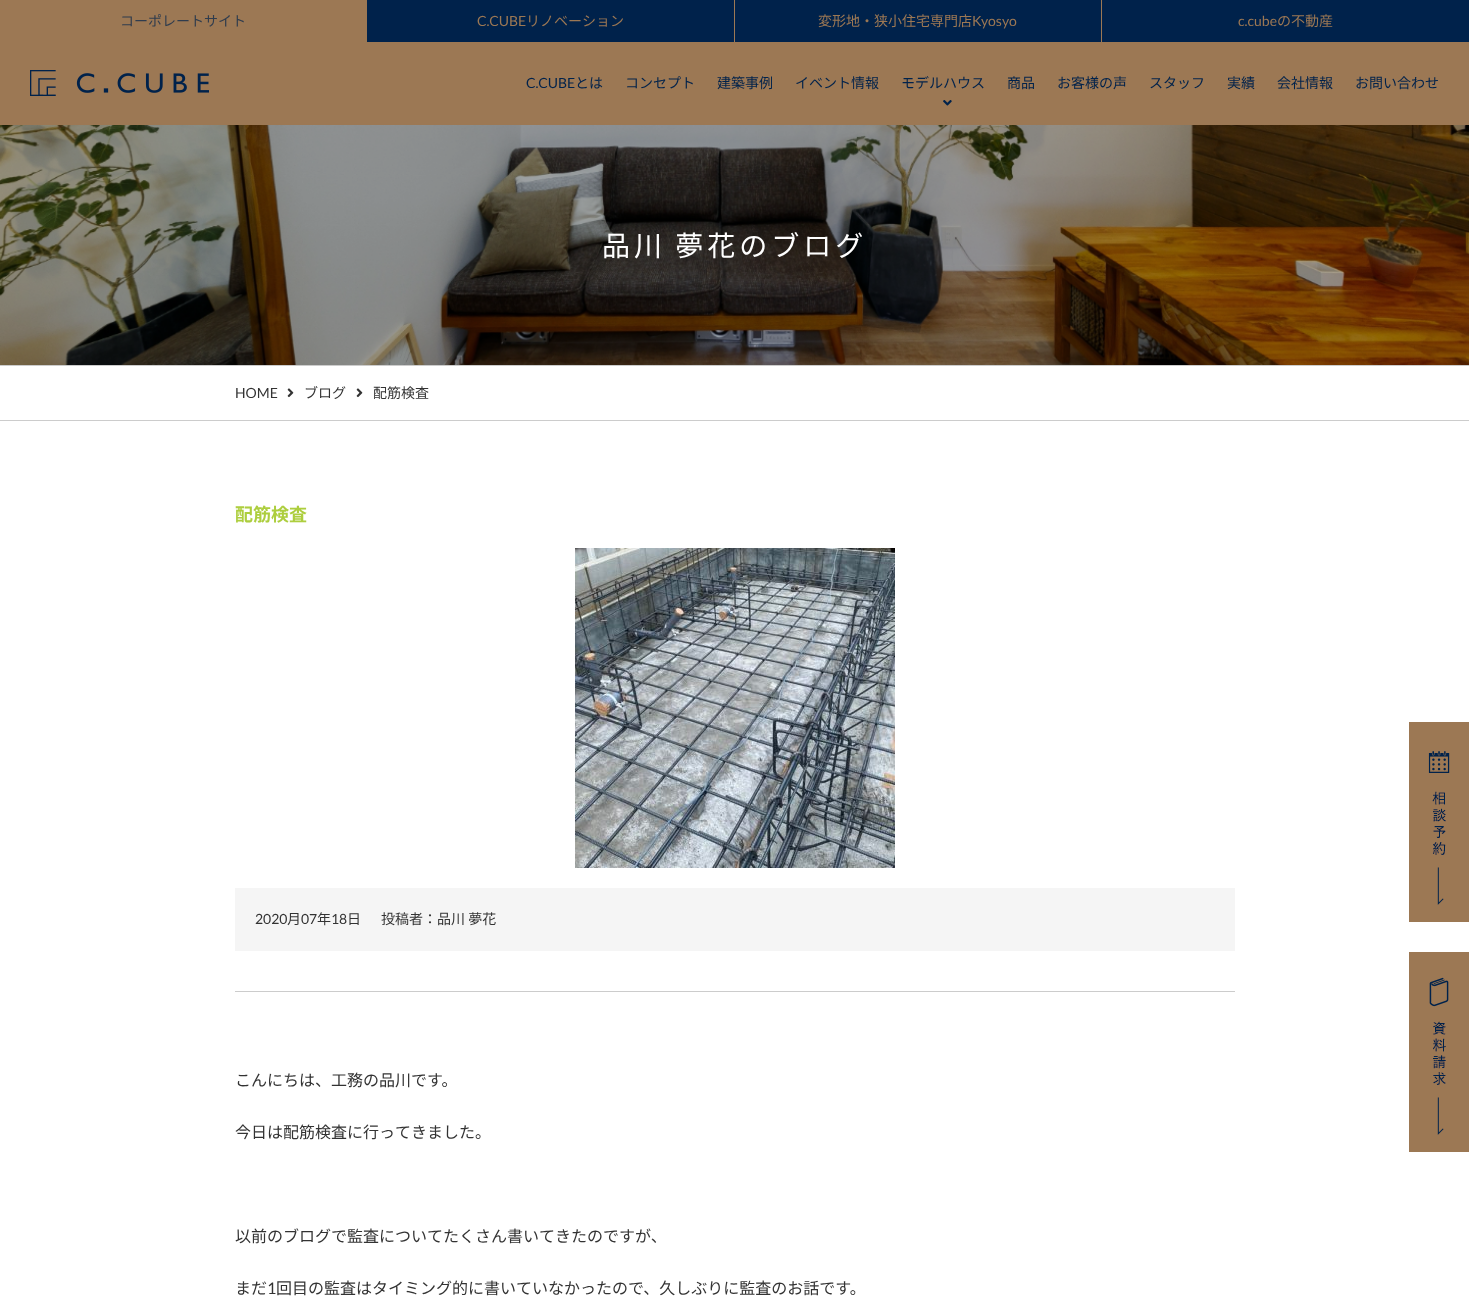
<!DOCTYPE html>
<meta charset="utf-8">
<style>body { margin: 0 } canvas { display: block }</style>
<canvas id="canvas" width="1469" height="1313"></canvas>
<script type="module">
  const canvas = document.getElementById("canvas");
  const g = canvas.getContext("2d");
  g.miterLimit = 4;
  g.fontKerning = "normal";
  function drawText(s, x, y, [font, color]) {
    g.font = font;
    g.fillStyle = color;
    g.fillText(s, x, y);
  }
  function fillBox(x, y, w, h, color) {
    g.fillStyle = color;
    g.fillRect(x, y, w, h);
  }
  async function drawPicture(src, x, y, w, h) {
    const img = new Image();
    img.src = src;
    await img.decode();
    g.drawImage(img, x, y, w, h);
  }

  const s1 = ["14px Noto Sans JP", "#2F3C4E"];
  const s2 = ["14px Lato", "#9C7854"];
  const s3 = ["14px Noto Sans JP", "#9C7854"];
  const s4 = ["14px Lato", "#00224B"];
  const s5 = ["14px Noto Sans JP", "#00224B"];
  const s6 = ["28px Noto Sans JP", "#FFFFFF"];
  const s7 = ["14px Lato", "#333333"];
  const s8 = ["14px Noto Sans JP", "#333333"];
  const s9 = ["bold 18px Noto Sans JP", "#ADCE3E"];
  const s10 = ["16px Noto Sans JP", "#333333"];
  const s11 = ["16px Lato", "#333333"];

  fillBox(0, 0, 1469, 1313, "#FFFFFF");
  fillBox(0, 42, 1469, 83, "#9C7854");
  fillBox(367, 0, 1102, 42, "#00224B");
  fillBox(0, 0, 367, 42, "#9C7854");
  drawText("コーポレートサイト", 120, 26, s1);
  fillBox(734, 0, 1, 42, "#9C7854");
  drawText("C.CUBE", 477, 26, s2);
  drawText("リノベーション", 526, 26, s3);
  fillBox(1101, 0, 1, 42, "#9C7854");
  drawText("変形地・狭小住宅専門店", 818, 26, s3);
  drawText("Kyosyo", 972, 26, s2);
  drawText("c.cube", 1238, 26, s2);
  drawText("の不動産", 1277, 26, s3);
  await drawPicture("pic1.png", 30, 70, 179, 26);
  drawText("C.CUBE", 526, 88, s4);
  drawText("とは", 575, 88, s5);
  drawText("コンセプト", 625, 88, s5);
  drawText("建築事例", 717, 88, s5);
  drawText("イベント情報", 795, 88, s5);
  drawText("モデルハウス", 901, 88, s5);
  await drawPicture("pic2.png", 943, 100, 9, 6);
  drawText("商品", 1007, 88, s5);
  drawText("お客様の声", 1057, 88, s5);
  drawText("スタッフ", 1149, 88, s5);
  drawText("実績", 1227, 88, s5);
  drawText("会社情報", 1277, 88, s5);
  drawText("お問い合わせ", 1355, 88, s5);
  await drawPicture("pic3.png", 0, 125, 1469, 240);
  g.letterSpacing = "4px";
  g.wordSpacing = "-1px";
  drawText("品川 夢花のブログ", 602, 256, s6);
  fillBox(0, 365, 1469, 1, "#CCCCCC");
  fillBox(0, 420, 1469, 1, "#CCCCCC");
  g.letterSpacing = "0px";
  g.wordSpacing = "0px";
  drawText("HOME", 235, 398, s7);
  await drawPicture("pic4.png", 287, 388, 7, 10);
  drawText("ブログ", 304, 398, s8);
  await drawPicture("pic4.png", 356, 388, 7, 10);
  drawText("配筋検査", 373, 398, s8);
  drawText("配筋検査", 235, 521, s9);
  await drawPicture("pic5.png", 575, 548, 320, 320);
  fillBox(235, 888, 1000, 63, "#F5F5F5");
  drawText("2020", 255, 924, s7);
  drawText("月", 287, 924, s8);
  drawText("07", 301, 924, s7);
  drawText("年", 317, 924, s8);
  drawText("18", 331, 924, s7);
  drawText("日", 347, 924, s8);
  drawText("投稿者：品川 夢花", 381, 924, s8);
  fillBox(235, 991, 1000, 1, "#CCCCCC");
  drawText("こんにちは、工務の品川です。", 235, 1086, s10);
  drawText("今日は配筋検査に行ってきました。", 235, 1138, s10);
  drawText("以前のブログで監査についてたくさん書いてきたのですが、", 235, 1242, s10);
  drawText("まだ", 235, 1294, s10);
  drawText("1", 267, 1294, s11);
  drawText("回目の監査はタイミング的に書いていなかったので、久しぶりに監査のお話です。", 276, 1294, s10);
  await drawPicture("pic6.png", 1409, 722, 60, 200);
  await drawPicture("pic7.png", 1409, 952, 60, 200);
</script>
